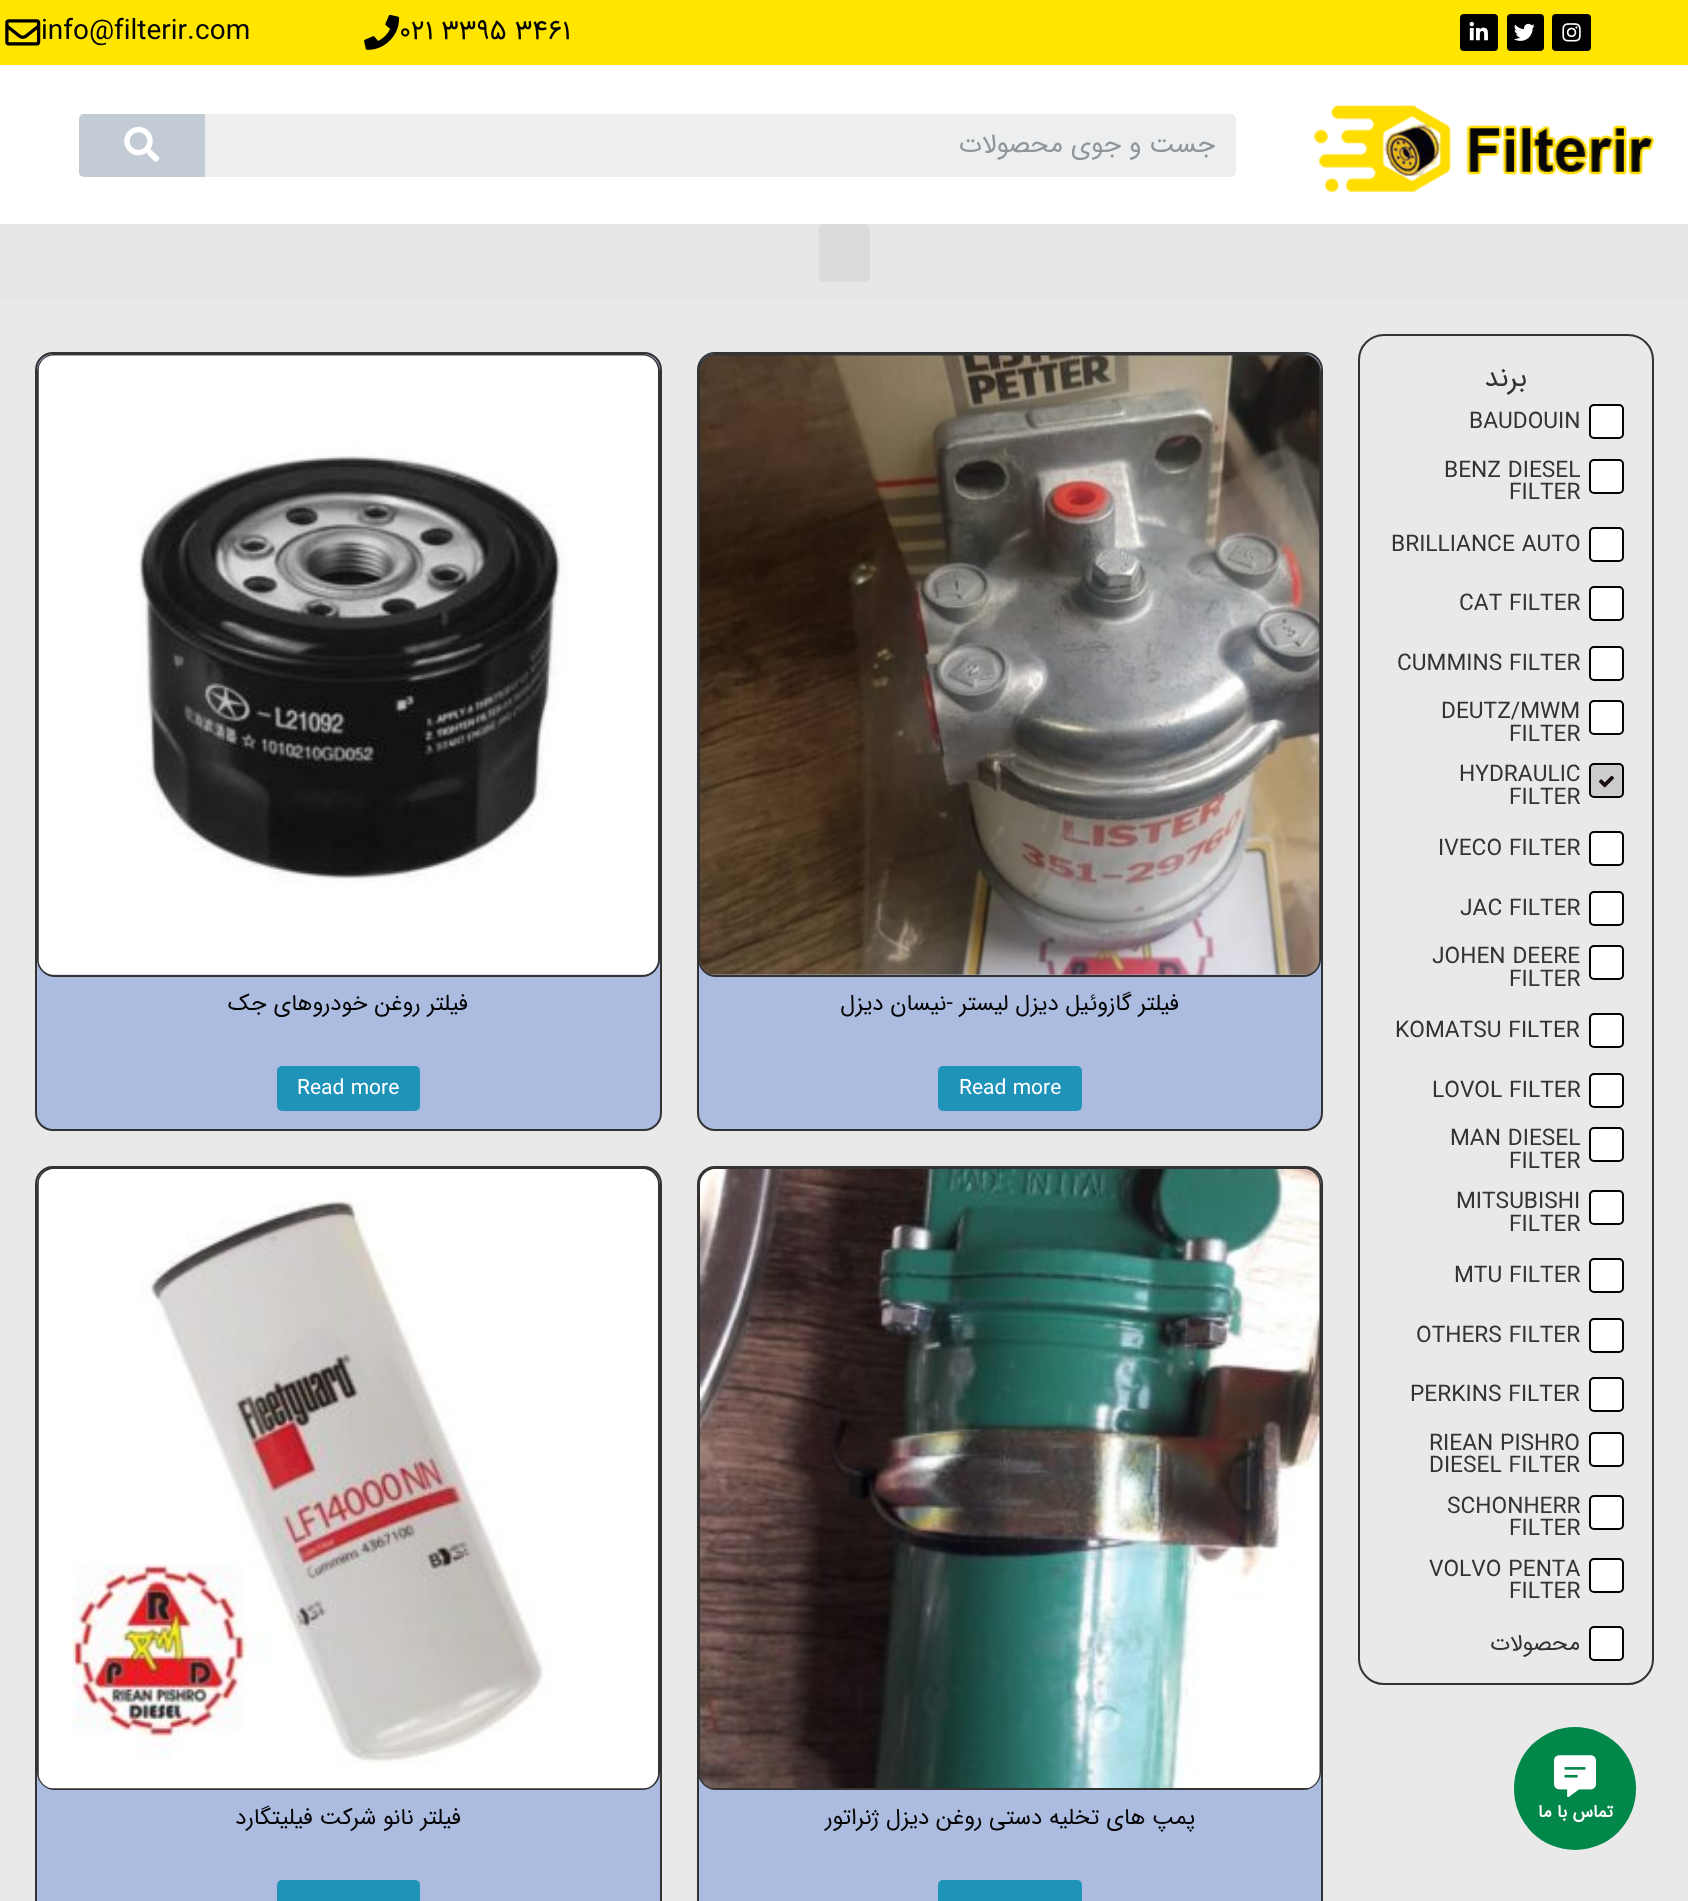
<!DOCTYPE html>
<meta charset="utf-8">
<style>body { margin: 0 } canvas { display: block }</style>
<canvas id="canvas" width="1688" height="1901"></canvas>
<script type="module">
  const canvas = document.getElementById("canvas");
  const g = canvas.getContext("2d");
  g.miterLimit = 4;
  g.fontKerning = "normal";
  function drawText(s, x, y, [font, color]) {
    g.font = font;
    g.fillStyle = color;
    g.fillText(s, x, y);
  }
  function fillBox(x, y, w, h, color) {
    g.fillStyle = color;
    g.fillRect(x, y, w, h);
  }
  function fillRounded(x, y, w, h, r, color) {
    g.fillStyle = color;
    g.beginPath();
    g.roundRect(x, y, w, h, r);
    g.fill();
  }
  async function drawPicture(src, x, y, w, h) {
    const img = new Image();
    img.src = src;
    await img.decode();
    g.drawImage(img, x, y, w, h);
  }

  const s1 = ["28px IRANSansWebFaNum", "#030303"];
  const s2 = ["26.25px IRANSansWebFaNum", "#919597"];
  const s3 = ["22.75px IRANSansWebFaNum", "#030303"];
  const s4 = ["21px IRANSansWebFaNum", "#FFFFFF"];
  const s5 = ["28px IRANSansWebFaNum", "#333333"];
  const s6 = ["22.75px IRANSansWebFaNum", "#333333"];
  const s7 = ["bold 17.5px IRANSansWebFaNum", "#FFFFFF"];

  fillBox(0, 0, 1688, 1901, "#FFFFFF");
  fillBox(0, 0, 1688, 65, "#FFE500");
  await drawPicture("pic1.png", 5, 19, 36, 27);
  drawText("info@filterir.com", 41, 39, s1);
  await drawPicture("pic2.png", 364, 14, 36, 36);
  drawText("021 3395 3461", 399, 39, s1);
  fillRounded(1460, 14, 38, 37, 4, "#000000");
  await drawPicture("pic3.png", 1469, 21, 19, 20);
  fillRounded(1507, 14, 37, 37, 4, "#000000");
  await drawPicture("pic4.png", 1514, 23, 21, 18);
  fillRounded(1552, 14, 39, 37, 4, "#000000");
  await drawPicture("pic5.png", 1562, 23, 19, 19);
  fillRounded(79, 114, 1157, 63, 5, "#ECEEEF");
  g.fillStyle = "#C3CBD4";
  g.beginPath();
  g.roundRect(79, 114, 126, 63, [5, 0, 0, 5]);
  g.fill();
  await drawPicture("pic6.png", 124, 126, 36, 36);
  g.direction = "rtl";
  drawText("جست و جوی محصولات", 1215, 152, s2);
  await drawPicture("pic7.png", 1314, 105, 341, 87);
  fillBox(0, 224, 1688, 75, "#E7E7E7");
  fillRounded(819, 224, 51, 58, 5, "#DBDBDB");
  fillBox(0, 299, 1688, 1602, "#E9E9E9");
  g.fillStyle = "#ABBCE0";
  g.beginPath();
  g.roundRect(36, 353, 625, 777, 17);
  g.fill();
  g.strokeStyle = "#333333";
  g.lineWidth = 2;
  g.stroke();
  g.beginPath();
  g.roundRect(38, 355, 621, 621, 17);
  g.stroke();
  await drawPicture("pic8.png", 38, 355, 620, 620);
  drawText("فیلتر روغن خودروهای جک", 468, 1010, s3);
  fillRounded(277, 1066, 143, 45, 5, "#2093B9");
  g.direction = "ltr";
  drawText("Read more", 297, 1094, s4);
  g.fillStyle = "#ABBCE0";
  g.beginPath();
  g.roundRect(698, 353, 624, 777, 17);
  g.fill();
  g.stroke();
  g.beginPath();
  g.roundRect(699, 355, 621, 621, 17);
  g.stroke();
  await drawPicture("pic9.png", 700, 355, 620, 620);
  g.direction = "rtl";
  drawText("فیلتر گازوئیل دیزل لیستر -نیسان دیزل", 1179, 1010, s3);
  fillRounded(938, 1066, 144, 45, 5, "#2093B9");
  g.direction = "ltr";
  drawText("Read more", 959, 1094, s4);
  g.fillStyle = "#ABBCE0";
  g.beginPath();
  g.roundRect(36, 1167, 625, 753, 17);
  g.fill();
  g.stroke();
  g.beginPath();
  g.roundRect(38, 1168, 621, 621, 17);
  g.stroke();
  await drawPicture("pic10.png", 38, 1169, 620, 620);
  g.direction = "rtl";
  drawText("فیلتر نانو شرکت فیلیتگارد", 461, 1824, s3);
  fillRounded(277, 1880, 143, 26, 5, "#2093B9");
  g.fillStyle = "#ABBCE0";
  g.beginPath();
  g.roundRect(698, 1167, 624, 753, 17);
  g.fill();
  g.stroke();
  g.beginPath();
  g.roundRect(699, 1168, 621, 621, 17);
  g.stroke();
  await drawPicture("pic11.png", 700, 1169, 620, 619);
  drawText("پمپ های تخلیه دستی روغن دیزل ژنراتور", 1195, 1824, s3);
  fillRounded(938, 1880, 144, 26, 5, "#2093B9");
  g.beginPath();
  g.roundRect(1359, 335, 294, 1349, 25);
  g.stroke();
  drawText("برند", 1527, 386, s5);
  g.direction = "ltr";
  drawText("BAUDOUIN", 1469, 428, s6);
  g.fillStyle = "#FFFFFF";
  g.beginPath();
  g.roundRect(1590, 405, 33, 33, 4);
  g.fill();
  g.strokeStyle = "#030303";
  g.stroke();
  drawText("BENZ DIESEL", 1444, 477, s6);
  drawText("FILTER", 1509, 499, s6);
  g.fillStyle = "#FFFFFF";
  g.beginPath();
  g.roundRect(1590, 460, 33, 33, 4);
  g.fill();
  g.stroke();
  drawText("BRILLIANCE AUTO", 1391, 551, s6);
  g.fillStyle = "#FFFFFF";
  g.beginPath();
  g.roundRect(1590, 528, 33, 33, 4);
  g.fill();
  g.stroke();
  drawText("CAT FILTER", 1459, 610, s6);
  g.fillStyle = "#FFFFFF";
  g.beginPath();
  g.roundRect(1590, 587, 33, 33, 4);
  g.fill();
  g.stroke();
  drawText("CUMMINS FILTER", 1397, 670, s6);
  g.fillStyle = "#FFFFFF";
  g.beginPath();
  g.roundRect(1590, 647, 33, 33, 4);
  g.fill();
  g.stroke();
  drawText("DEUTZ/MWM", 1441, 718, s6);
  drawText("FILTER", 1509, 741, s6);
  g.fillStyle = "#FFFFFF";
  g.beginPath();
  g.roundRect(1590, 701, 33, 33, 4);
  g.fill();
  g.stroke();
  drawText("HYDRAULIC", 1459, 781, s6);
  drawText("FILTER", 1509, 804, s6);
  g.fillStyle = "#CCCCCC";
  g.beginPath();
  g.roundRect(1590, 764, 33, 33, 4);
  g.fill();
  g.stroke();
  await drawPicture("pic12.png", 1599, 775, 15, 13);
  drawText("IVECO FILTER", 1438, 855, s6);
  g.fillStyle = "#FFFFFF";
  g.beginPath();
  g.roundRect(1590, 832, 33, 33, 4);
  g.fill();
  g.stroke();
  drawText("JAC FILTER", 1460, 915, s6);
  g.fillStyle = "#FFFFFF";
  g.beginPath();
  g.roundRect(1590, 892, 33, 33, 4);
  g.fill();
  g.stroke();
  drawText("JOHEN DEERE", 1432, 963, s6);
  drawText("FILTER", 1509, 986, s6);
  g.fillStyle = "#FFFFFF";
  g.beginPath();
  g.roundRect(1590, 946, 33, 33, 4);
  g.fill();
  g.stroke();
  drawText("KOMATSU FILTER", 1395, 1037, s6);
  g.fillStyle = "#FFFFFF";
  g.beginPath();
  g.roundRect(1590, 1014, 33, 33, 4);
  g.fill();
  g.stroke();
  drawText("LOVOL FILTER", 1432, 1097, s6);
  g.fillStyle = "#FFFFFF";
  g.beginPath();
  g.roundRect(1590, 1074, 33, 33, 4);
  g.fill();
  g.stroke();
  drawText("MAN DIESEL", 1450, 1145, s6);
  drawText("FILTER", 1509, 1168, s6);
  g.fillStyle = "#FFFFFF";
  g.beginPath();
  g.roundRect(1590, 1128, 33, 33, 4);
  g.fill();
  g.stroke();
  drawText("MITSUBISHI", 1456, 1208, s6);
  drawText("FILTER", 1509, 1231, s6);
  g.fillStyle = "#FFFFFF";
  g.beginPath();
  g.roundRect(1590, 1191, 33, 33, 4);
  g.fill();
  g.stroke();
  drawText("MTU FILTER", 1454, 1282, s6);
  g.fillStyle = "#FFFFFF";
  g.beginPath();
  g.roundRect(1590, 1259, 33, 33, 4);
  g.fill();
  g.stroke();
  drawText("OTHERS FILTER", 1416, 1342, s6);
  g.fillStyle = "#FFFFFF";
  g.beginPath();
  g.roundRect(1590, 1319, 33, 33, 4);
  g.fill();
  g.stroke();
  drawText("PERKINS FILTER", 1410, 1401, s6);
  g.fillStyle = "#FFFFFF";
  g.beginPath();
  g.roundRect(1590, 1378, 33, 33, 4);
  g.fill();
  g.stroke();
  drawText("RIEAN PISHRO", 1429, 1450, s6);
  drawText("DIESEL FILTER", 1429, 1472, s6);
  g.fillStyle = "#FFFFFF";
  g.beginPath();
  g.roundRect(1590, 1433, 33, 33, 4);
  g.fill();
  g.stroke();
  drawText("SCHONHERR", 1447, 1513, s6);
  drawText("FILTER", 1509, 1535, s6);
  g.fillStyle = "#FFFFFF";
  g.beginPath();
  g.roundRect(1590, 1496, 33, 33, 4);
  g.fill();
  g.stroke();
  drawText("VOLVO PENTA", 1429, 1576, s6);
  drawText("FILTER", 1509, 1598, s6);
  g.fillStyle = "#FFFFFF";
  g.beginPath();
  g.roundRect(1590, 1559, 33, 33, 4);
  g.fill();
  g.stroke();
  g.direction = "rtl";
  drawText("محصولات", 1580, 1650, s6);
  g.fillStyle = "#FFFFFF";
  g.beginPath();
  g.roundRect(1590, 1627, 33, 33, 4);
  g.fill();
  g.stroke();
  fillRounded(1514, 1727, 122, 123, 61, "#008749");
  await drawPicture("pic13.png", 1554, 1755, 42, 42);
  drawText("تماس با ما", 1613, 1817, s7);
</script>
